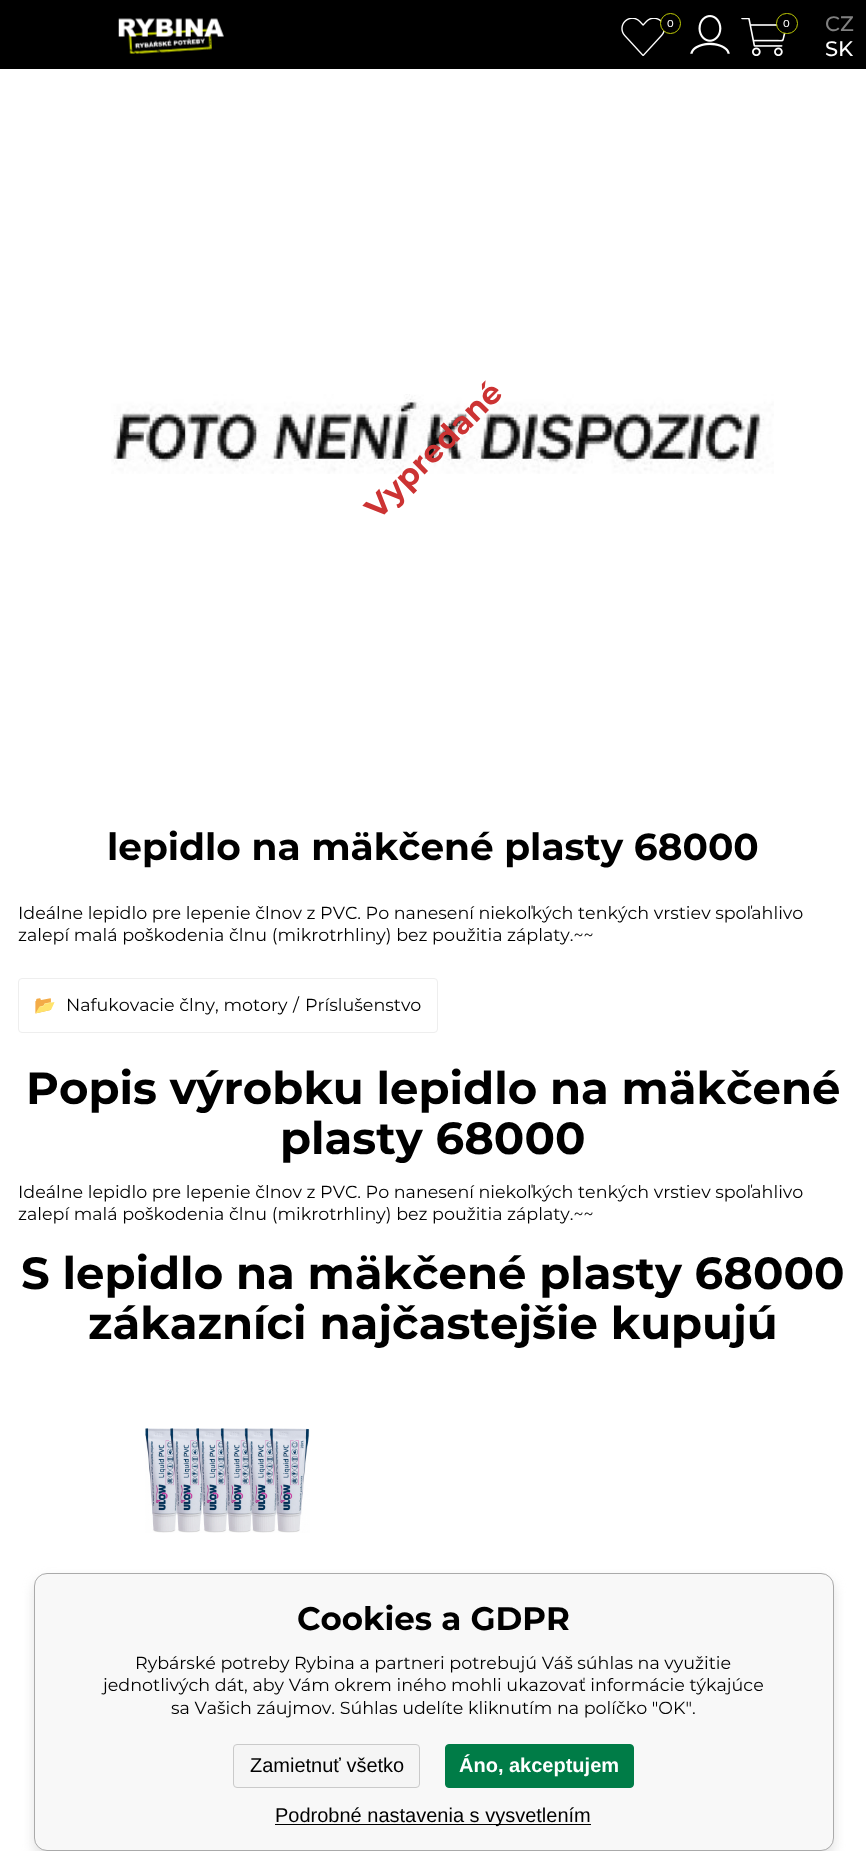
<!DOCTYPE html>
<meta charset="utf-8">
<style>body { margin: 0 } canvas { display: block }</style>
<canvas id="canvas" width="866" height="1851"></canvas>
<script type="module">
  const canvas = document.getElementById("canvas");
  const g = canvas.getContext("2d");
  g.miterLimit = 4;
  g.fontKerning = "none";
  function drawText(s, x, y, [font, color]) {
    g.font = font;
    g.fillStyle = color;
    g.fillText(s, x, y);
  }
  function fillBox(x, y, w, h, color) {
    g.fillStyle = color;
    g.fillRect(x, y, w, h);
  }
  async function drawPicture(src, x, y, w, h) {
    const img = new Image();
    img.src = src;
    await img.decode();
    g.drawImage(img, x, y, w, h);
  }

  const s1 = ["500 10px Montserrat", "#FFFFFF"];
  const s2 = ["500 21px Montserrat", "#808080"];
  const s3 = ["500 21px Montserrat", "#FFFFFF"];
  const s4 = ["bold 37.5px Montserrat", "#000000"];
  const s5 = ["17.5px Montserrat", "#000000"];
  const s6 = ["17.5px Noto Color Emoji", "#FABB24"];
  const s7 = ["bold 45px Montserrat", "#000000"];
  const s8 = ["bold 32.5px Montserrat", "#000000"];
  const s9 = ["20px Liberation Sans", "#000000"];
  const s10 = ["bold 20px Liberation Sans", "#FFFFFF"];

  fillBox(0, 0, 866, 1851, "#FFFFFF");
  fillBox(0, 0, 866, 69, "#000000");
  await drawPicture("pic1.png", 118, 18, 106, 36);
  await drawPicture("pic2.png", 621, 18, 44, 38);
  g.beginPath();
  g.arc(670.5, 23.5, 10, 0, Math.PI * 2);
  g.fill();
  g.strokeStyle = "#BFCB05";
  g.stroke();
  drawText("0", 667, 27, s1);
  await drawPicture("pic3.png", 690, 15, 40, 39);
  await drawPicture("pic4.png", 741, 18, 45, 38);
  g.fillStyle = "#000000";
  g.beginPath();
  g.roundRect(776.5, 13.5, 21, 20, 10);
  g.fill();
  g.stroke();
  drawText("0", 783, 27, s1);
  drawText("CZ", 825, 31, s2);
  drawText("SK", 825, 56, s3);
  await drawPicture("pic5.png", 111, 394, 663, 80);
  g.font = "bold 31.25px Montserrat";
  g.fillStyle = "#CC3333";
  g.save();
  g.translate(378, 521);
  g.rotate(-45 * Math.PI / 180);
  g.fillText("Vypredané", 0, 0);
  g.restore();
  drawText("lepidlo na mäkčené plasty 68000", 107, 860, s4);
  drawText("Ideálne lepidlo pre lepenie člnov z PVC. Po nanesení niekoľkých tenkých vrstiev spoľahlivo", 18, 919, s5);
  drawText("zalepí malá poškodenia člnu (mikrotrhliny) bez použitia záplaty.~~", 18, 941, s5);
  g.beginPath();
  g.roundRect(18.5, 978.5, 419, 54, 3.5);
  g.strokeStyle = "#EEEEEE";
  g.stroke();
  drawText("📂", 34, 1011, s6);
  drawText("Nafukovacie člny, motory", 66, 1011, s5);
  drawText("/", 293, 1011, s5);
  drawText("Príslušenstvo", 305, 1011, s5);
  drawText("Popis výrobku lepidlo na mäkčené", 26, 1104, s7);
  drawText("plasty 68000", 280, 1154, s7);
  drawText("Ideálne lepidlo pre lepenie člnov z PVC. Po nanesení niekoľkých tenkých vrstiev spoľahlivo", 18, 1198, s5);
  drawText("zalepí malá poškodenia člnu (mikrotrhliny) bez použitia záplaty.~~", 18, 1220, s5);
  drawText("S lepidlo na mäkčené plasty 68000", 21, 1289, s7);
  drawText("zákazníci najčastejšie kupujú", 88, 1339, s7);
  await drawPicture("pic6.png", 145, 1428, 165, 105);
  g.fillStyle = "rgba(200, 200, 200, 0.5)";
  g.filter = "blur(6px)";
  g.beginPath();
  g.roundRect(34, 1579, 800, 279, 13);
  g.fill();
  g.filter = "none";
  g.fillStyle = "#F8F8F8";
  g.beginPath();
  g.roundRect(34.5, 1573.5, 799, 277, 12.5);
  g.fill();
  g.strokeStyle = "#AAAAAA";
  g.stroke();
  drawText("Cookies a GDPR", 297, 1630, s8);
  drawText("Rybárské potreby Rybina a partneri potrebujú Váš súhlas na využitie", 135, 1669, s5);
  drawText("jednotlivých dát, aby Vám okrem iného mohli ukazovať informácie týkajúce", 103, 1691, s5);
  drawText("sa Vašich záujmov. Súhlas udelíte kliknutím na políčko \"OK\".", 171, 1714, s5);
  g.fillStyle = "#F5F5F5";
  g.beginPath();
  g.roundRect(233.5, 1744.5, 186, 43, 3.5);
  g.fill();
  g.strokeStyle = "#CACACA";
  g.stroke();
  drawText("Zamietnuť všetko", 250, 1772, s9);
  g.fillStyle = "#007C47";
  g.beginPath();
  g.roundRect(445.5, 1744.5, 188, 43, 3.5);
  g.fill();
  g.strokeStyle = "#007C47";
  g.stroke();
  drawText("Áno, akceptujem", 459, 1772, s10);
  fillBox(275, 1824, 316, 1, "#000000");
  drawText("Podrobné nastavenia s vysvetlením", 275, 1822, s9);
</script>
